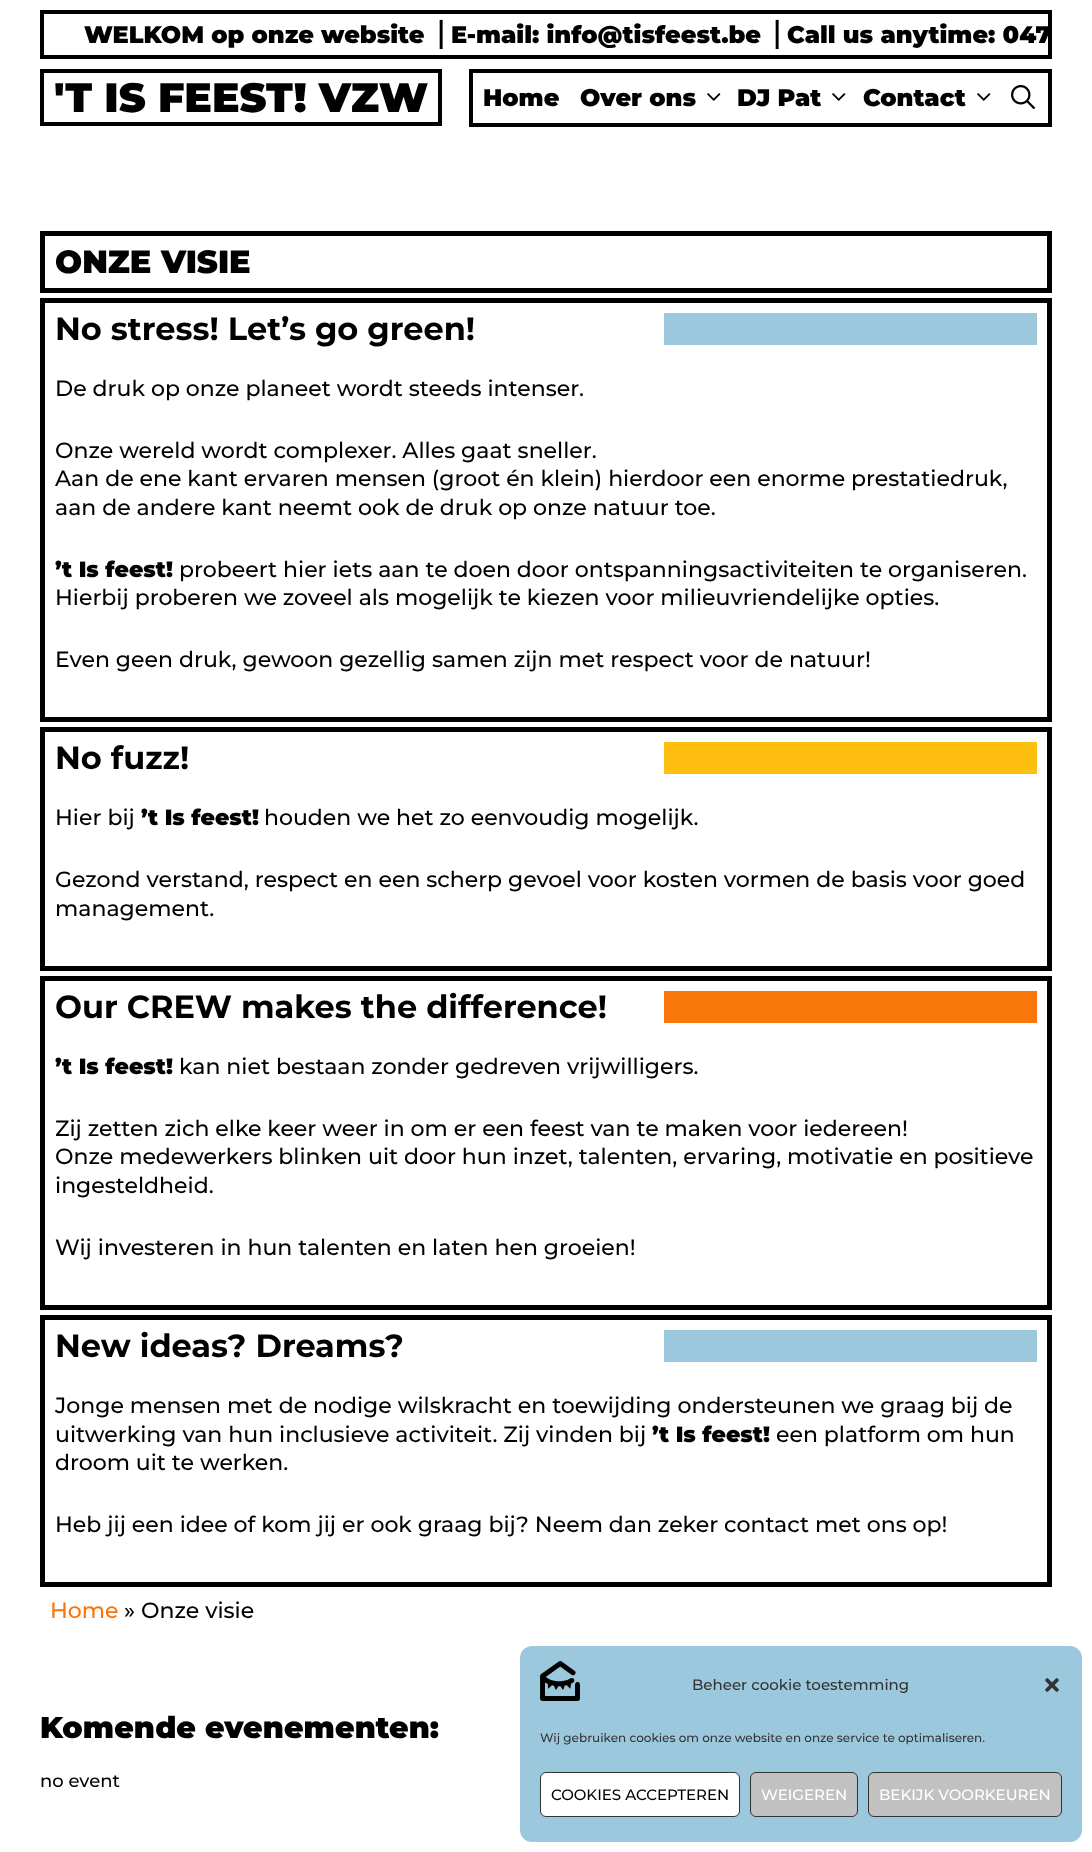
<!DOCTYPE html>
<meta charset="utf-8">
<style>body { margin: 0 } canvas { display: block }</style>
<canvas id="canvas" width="1092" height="1852"></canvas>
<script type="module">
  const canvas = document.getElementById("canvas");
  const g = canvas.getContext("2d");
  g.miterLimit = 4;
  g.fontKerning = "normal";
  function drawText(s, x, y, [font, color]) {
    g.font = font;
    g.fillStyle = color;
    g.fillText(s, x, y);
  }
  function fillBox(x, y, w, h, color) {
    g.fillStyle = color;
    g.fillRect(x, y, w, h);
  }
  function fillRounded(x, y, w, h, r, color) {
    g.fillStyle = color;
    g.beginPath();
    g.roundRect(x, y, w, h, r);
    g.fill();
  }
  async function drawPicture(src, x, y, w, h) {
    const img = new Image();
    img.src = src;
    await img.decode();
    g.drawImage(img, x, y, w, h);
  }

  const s1 = ["900 24px Montserrat", "#000000"];
  const s2 = ["bold 24px DejaVu Sans", "#000000"];
  const s3 = ["900 41px Montserrat", "#000000"];
  const s4 = ["900 32px Montserrat", "#000000"];
  const s5 = ["bold 32px Montserrat", "#000000"];
  const s6 = ["500 22px Montserrat", "#000000"];
  const s7 = ["900 22px Montserrat", "#000000"];
  const s8 = ["500 22px Montserrat", "#F9750B"];
  const s9 = ["900 30px Montserrat", "#000000"];
  const s10 = ["500 18px Montserrat", "#000000"];
  const s11 = ["500 15px Montserrat", "#333333"];
  const s12 = ["500 12px Montserrat", "#333333"];
  const s13 = ["500 15px Montserrat", "#000000"];
  const s14 = ["500 15px Montserrat", "#FFFFFF"];

  fillBox(0, 0, 1092, 1852, "#FFFFFF");
  g.strokeStyle = "#000000";
  g.lineWidth = 4;
  g.strokeRect(42, 12, 1008, 45);
  drawText("WELKOM op onze website", 84, 43, s1);
  drawText("⎥", 432, 43, s2);
  drawText("E-mail: info@tisfeest.be", 451, 43, s1);
  drawText("⎥", 768, 43, s2);
  g.save();
  g.beginPath();
  g.rect(44, 14, 1004, 41);
  g.clip();
  drawText("Call us anytime: 047", 787, 43, s1);
  g.restore();
  g.strokeRect(42, 71, 398, 53);
  drawText("'T IS FEEST! VZW", 54, 112, s3);
  g.strokeRect(471, 71, 579, 54);
  drawText("Home", 483, 106, s1);
  drawText("Over ons", 580, 106, s1);
  await drawPicture("pic1.png", 707, 93, 14, 8);
  drawText("DJ Pat", 737, 106, s1);
  await drawPicture("pic1.png", 832, 93, 14, 8);
  drawText("Contact", 863, 106, s1);
  await drawPicture("pic1.png", 977, 93, 14, 8);
  await drawPicture("pic2.png", 1011, 85, 24, 24);
  g.lineWidth = 5;
  g.strokeRect(42.5, 233.5, 1007, 57);
  drawText("ONZE VISIE", 55, 273, s4);
  g.strokeRect(42.5, 300.5, 1007, 419);
  fillBox(664, 313, 373, 32, "#9CC8DE");
  drawText("No stress! Let’s go green!", 55, 340, s5);
  drawText("De druk op onze planeet wordt steeds intenser.", 55, 396, s6);
  drawText("Onze wereld wordt complexer. Alles gaat sneller.", 55, 458, s6);
  drawText("Aan de ene kant ervaren mensen (groot én klein) hierdoor een enorme prestatiedruk,", 55, 486, s6);
  drawText("aan de andere kant neemt ook de druk op onze natuur toe.", 55, 515, s6);
  drawText("’t Is feest!", 55, 577, s7);
  drawText("probeert hier iets aan te doen door ontspanningsactiviteiten te organiseren.", 179, 577, s6);
  drawText("Hierbij proberen we zoveel als mogelijk te kiezen voor milieuvriendelijke opties.", 55, 605, s6);
  drawText("Even geen druk, gewoon gezellig samen zijn met respect voor de natuur!", 55, 667, s6);
  g.strokeRect(42.5, 729.5, 1007, 239);
  fillBox(664, 742, 373, 32, "#FFBF11");
  drawText("No fuzz!", 55, 769, s5);
  drawText("Hier bij", 55, 825, s6);
  drawText("’t Is feest!", 141, 825, s7);
  drawText("houden we het zo eenvoudig mogelijk.", 264, 825, s6);
  drawText("Gezond verstand, respect en een scherp gevoel voor kosten vormen de basis voor goed", 55, 887, s6);
  drawText("management.", 55, 916, s6);
  g.strokeRect(42.5, 978.5, 1007, 329);
  fillBox(664, 991, 373, 32, "#F9760B");
  drawText("Our CREW makes the difference!", 55, 1018, s5);
  drawText("’t Is feest!", 55, 1074, s7);
  drawText("kan niet bestaan zonder gedreven vrijwilligers.", 179, 1074, s6);
  drawText("Zij zetten zich elke keer weer in om er een feest van te maken voor iedereen!", 55, 1136, s6);
  drawText("Onze medewerkers blinken uit door hun inzet, talenten, ervaring, motivatie en positieve", 55, 1164, s6);
  drawText("ingesteldheid.", 55, 1193, s6);
  drawText("Wij investeren in hun talenten en laten hen groeien!", 55, 1255, s6);
  g.strokeRect(42.5, 1317.5, 1007, 267);
  fillBox(664, 1330, 373, 32, "#9CC8DE");
  drawText("New ideas? Dreams?", 55, 1357, s5);
  drawText("Jonge mensen met de nodige wilskracht en toewijding ondersteunen we graag bij de", 55, 1413, s6);
  drawText("uitwerking van hun inclusieve activiteit. Zij vinden bij", 55, 1442, s6);
  drawText("’t Is feest!", 652, 1442, s7);
  drawText("een platform om hun", 776, 1442, s6);
  drawText("droom uit te werken.", 55, 1470, s6);
  drawText("Heb jij een idee of kom jij er ook graag bij? Neem dan zeker contact met ons op!", 55, 1532, s6);
  drawText("Home", 50, 1618, s8);
  drawText("» Onze visie", 124, 1618, s6);
  drawText("Komende evenementen:", 40, 1738, s9);
  drawText("no event", 40, 1787, s10);
  fillRounded(520, 1646, 562, 196, 12, "#9CC8DE");
  await drawPicture("pic3.png", 540, 1661, 40, 40);
  drawText("Beheer cookie toestemming", 692, 1690, s11);
  await drawPicture("pic4.png", 1045, 1678, 14, 14);
  drawText("Wij gebruiken cookies om onze website en onze service te optimaliseren.", 540, 1742, s12);
  g.fillStyle = "#FFFFFF";
  g.beginPath();
  g.roundRect(540.5, 1772.5, 199, 44, 5.5);
  g.fill();
  g.strokeStyle = "#333333";
  g.lineWidth = 1;
  g.stroke();
  drawText("COOKIES ACCEPTEREN", 551, 1800, s13);
  g.fillStyle = "#C1C1C1";
  g.beginPath();
  g.roundRect(750.5, 1772.5, 107, 44, 5.5);
  g.fill();
  g.stroke();
  drawText("WEIGEREN", 761, 1800, s14);
  g.fillStyle = "#C1C1C1";
  g.beginPath();
  g.roundRect(868.5, 1772.5, 193, 44, 5.5);
  g.fill();
  g.stroke();
  drawText("BEKIJK VOORKEUREN", 879, 1800, s14);
</script>
